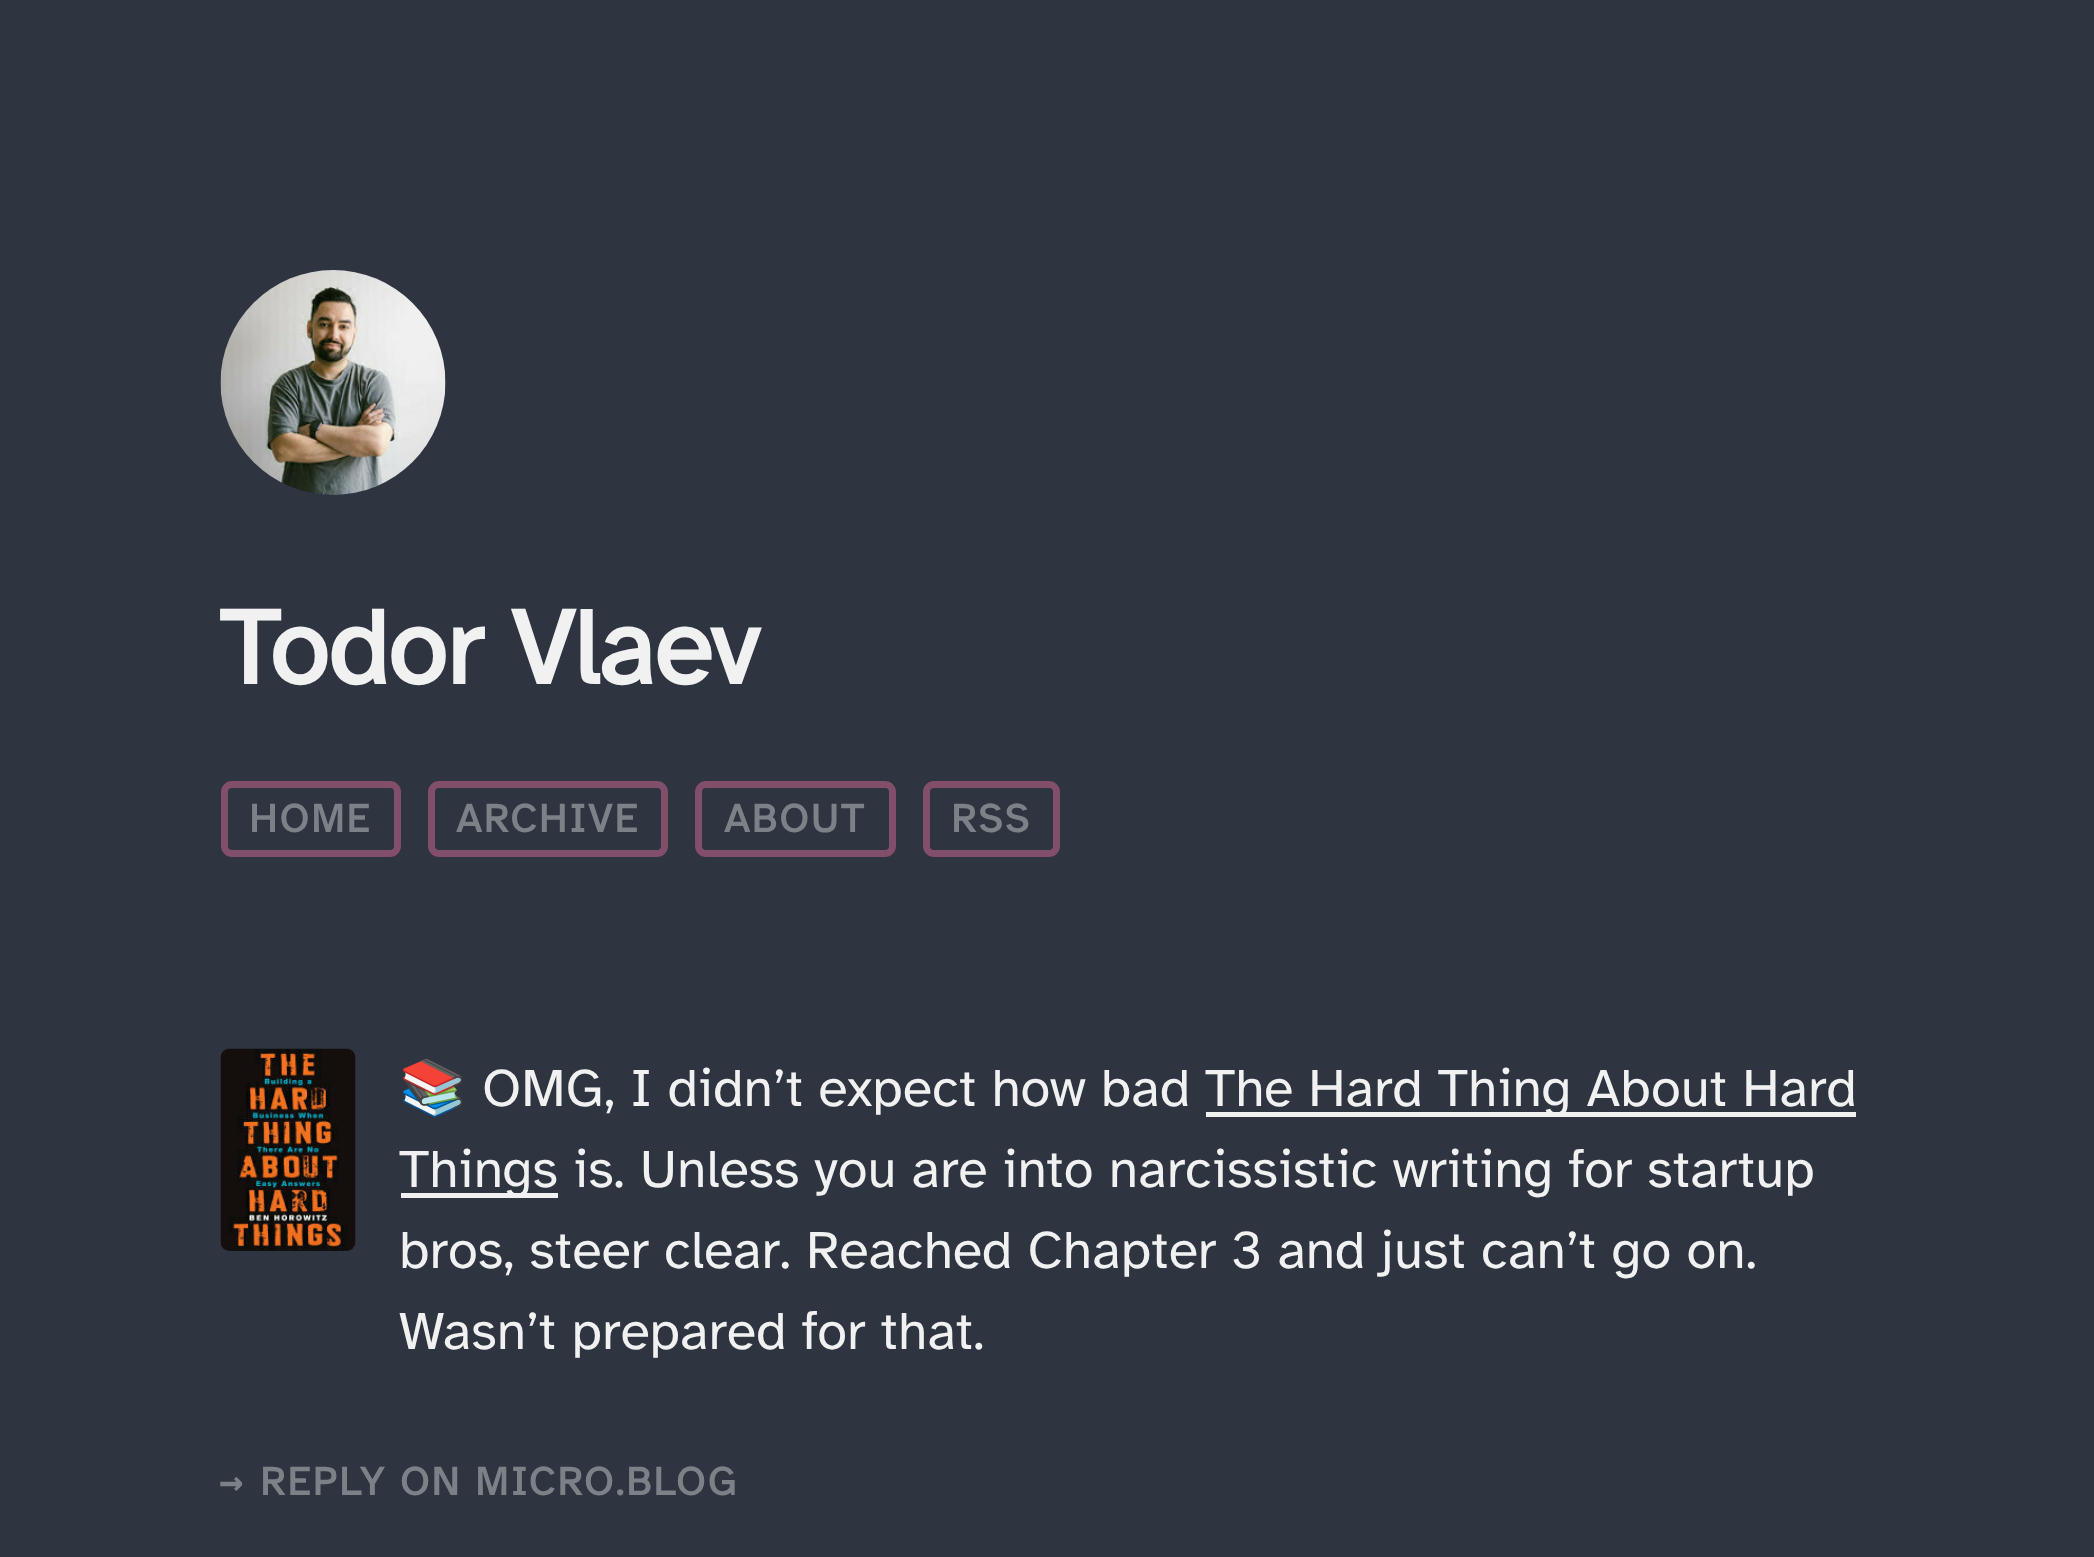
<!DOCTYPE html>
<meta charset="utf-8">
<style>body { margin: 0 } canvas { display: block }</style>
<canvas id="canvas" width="2094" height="1557"></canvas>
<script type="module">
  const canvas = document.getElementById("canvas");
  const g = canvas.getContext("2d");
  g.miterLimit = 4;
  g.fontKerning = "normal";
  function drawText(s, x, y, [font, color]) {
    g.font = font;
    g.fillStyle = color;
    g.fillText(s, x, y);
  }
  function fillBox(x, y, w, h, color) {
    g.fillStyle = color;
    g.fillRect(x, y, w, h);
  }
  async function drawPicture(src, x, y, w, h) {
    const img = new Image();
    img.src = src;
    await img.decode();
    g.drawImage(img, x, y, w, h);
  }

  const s1 = ["bold 108px Atkinson Hyperlegible", "#F1F1F1"];
  const s2 = ["bold 40.5px Atkinson Hyperlegible", "#7C8087"];
  const s3 = ["54px Noto Color Emoji", "#F1F1F1"];
  const s4 = ["54px Atkinson Hyperlegible", "#F1F1F1"];
  const s5 = ["bold 40.5px DejaVu Sans Mono", "#7C8087"];

  fillBox(0, 0, 2094, 1557, "#2E3440");
  await drawPicture("pic1.png", 220, 270, 226, 225);
  g.letterSpacing = "-1.1px";
  drawText("Todor Vlaev", 219, 684, s1);
  g.beginPath();
  g.roundRect(224.5, 784.5, 173, 69, 7.5);
  g.strokeStyle = "#824F6A";
  g.lineWidth = 7;
  g.stroke();
  g.letterSpacing = "2.25px";
  drawText("HOME", 249, 832, s2);
  g.beginPath();
  g.roundRect(431.5, 784.5, 233, 69, 7.5);
  g.stroke();
  drawText("ARCHIVE", 456, 832, s2);
  g.beginPath();
  g.roundRect(698.5, 784.5, 194, 69, 7.5);
  g.stroke();
  drawText("ABOUT", 724, 832, s2);
  g.beginPath();
  g.roundRect(926.5, 784.5, 130, 69, 7.5);
  g.stroke();
  drawText("RSS", 951, 832, s2);
  await drawPicture("pic2.png", 220, 1048, 136, 203);
  g.letterSpacing = "0px";
  drawText("📚", 399, 1106, s3);
  drawText("OMG, I didn’t expect how bad", 482, 1106, s4);
  fillBox(1206, 1112, 650, 5, "#F1F1F1");
  drawText("The Hard Thing About Hard", 1205, 1106, s4);
  fillBox(401, 1193, 157, 5, "#F1F1F1");
  drawText("Things is. Unless you are into narcissistic writing for startup", 399, 1187, s4);
  drawText("bros, steer clear. Reached Chapter 3 and just can’t go on.", 399, 1268, s4);
  drawText("Wasn’t prepared for that.", 399, 1349, s4);
  g.letterSpacing = "2.25px";
  drawText("→", 219, 1495, s5);
  drawText("REPLY ON MICRO.BLOG", 260, 1495, s2);
</script>
